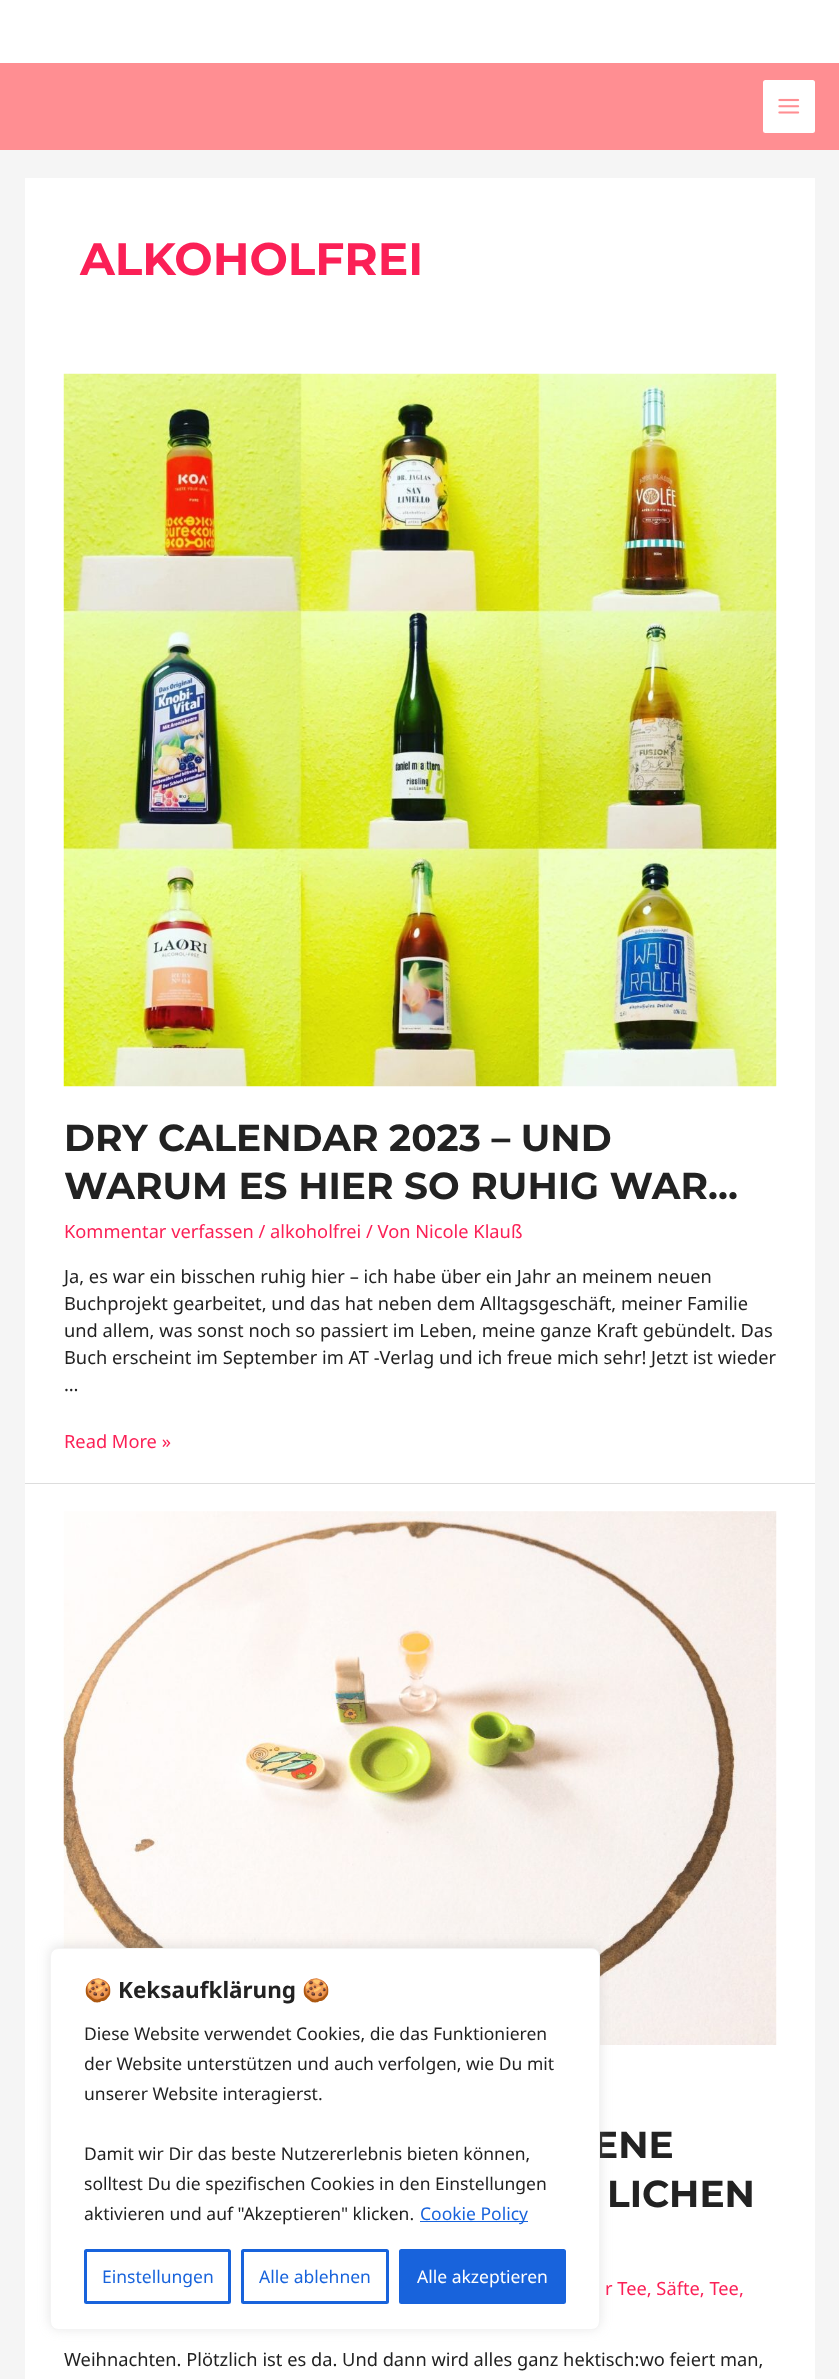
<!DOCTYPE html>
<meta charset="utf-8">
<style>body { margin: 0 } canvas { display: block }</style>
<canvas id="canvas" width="839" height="2379"></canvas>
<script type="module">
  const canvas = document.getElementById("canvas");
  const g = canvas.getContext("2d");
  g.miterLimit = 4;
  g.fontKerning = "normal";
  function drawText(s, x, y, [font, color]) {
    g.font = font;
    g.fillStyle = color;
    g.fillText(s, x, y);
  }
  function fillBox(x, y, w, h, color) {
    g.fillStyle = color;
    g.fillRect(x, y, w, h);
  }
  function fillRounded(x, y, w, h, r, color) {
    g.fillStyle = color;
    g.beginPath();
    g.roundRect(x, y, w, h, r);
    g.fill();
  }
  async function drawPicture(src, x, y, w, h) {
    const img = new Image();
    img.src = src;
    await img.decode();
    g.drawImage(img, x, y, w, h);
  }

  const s1 = ["100 45.5px Montserrat", "#FB2056"];
  const s2 = ["100 37.5px Montserrat", "#222222"];
  const s3 = ["18.25px Noto Sans", "#FB2056"];
  const s4 = ["18.25px Noto Sans", "#222222"];
  const s5 = ["bold 22.5px Noto Color Emoji", "#222222"];
  const s6 = ["bold 22.5px Noto Sans", "#222222"];
  const s7 = ["17.5px Noto Sans", "#222222"];
  const s8 = ["17.5px Noto Sans", "#1863DC"];
  const s9 = ["17.5px Noto Sans", "#FFFFFF"];

  fillBox(0, 0, 839, 2379, "#F5F5F5");
  fillBox(0, 0, 839, 63, "#FFFFFF");
  fillBox(0, 63, 839, 87, "#FF8E92");
  fillRounded(763, 80, 52, 53, 2.5, "#FFFFFF");
  await drawPicture("pic1.png", 778, 98, 22, 16);
  fillBox(25, 178, 790, 1305, "#FFFFFF");
  drawText("ALKOHOLFREI", 80, 275, s1);
  fillBox(25, 1483, 790, 1, "#DDDDDD");
  await drawPicture("pic2.png", 63, 373, 714, 714);
  drawText("DRY CALENDAR 2023 – UND", 64, 1151, s2);
  drawText("WARUM ES HIER SO RUHIG WAR…", 64, 1199, s2);
  drawText("Kommentar verfassen / alkoholfrei / Von Nicole Klauß", 64, 1238, s3);
  drawText("Ja, es war ein bisschen ruhig hier – ich habe über ein Jahr an meinem neuen", 64, 1283, s4);
  drawText("Buchprojekt gearbeitet, und das hat neben dem Alltagsgeschäft, meiner Familie", 64, 1310, s4);
  drawText("und allem, was sonst noch so passiert im Leben, meine ganze Kraft gebündelt. Das", 64, 1337, s4);
  drawText("Buch erscheint im September im AT -Verlag und ich freue mich sehr! Jetzt ist wieder", 64, 1364, s4);
  drawText("…", 64, 1391, s4);
  drawText("Read More »", 64, 1448, s3);
  fillBox(25, 1484, 790, 895, "#FFFFFF");
  await drawPicture("pic3.png", 63, 1511, 714, 534);
  drawText("ENE", 593, 2158, s2);
  drawText("LICHEN", 607, 2207, s2);
  drawText("r Tee, Säfte, Tee,", 605, 2295, s3);
  drawText("Weihnachten. Plötzlich ist es da. Und dann wird alles ganz hektisch:wo feiert man,", 64, 2366, s4);
  g.fillStyle = "rgba(172, 171, 171, 0.3)";
  g.filter = "blur(6px)";
  g.beginPath();
  g.roundRect(50, 1946, 550, 383, 8);
  g.fill();
  g.filter = "none";
  g.fillStyle = "#FFFFFF";
  g.beginPath();
  g.roundRect(50.5, 1948.5, 549, 381, 7.5);
  g.fill();
  g.strokeStyle = "#F4F4F4";
  g.stroke();
  drawText("🍪", 84, 1998, s5);
  drawText("Keksaufklärung", 118, 1998, s6);
  drawText("🍪", 302, 1998, s5);
  drawText("Diese Website verwendet Cookies, die das Funktionieren", 84, 2040, s7);
  drawText("der Website unterstützen und auch verfolgen, wie Du mit", 84, 2070, s7);
  drawText("unserer Website interagierst.", 84, 2100, s7);
  drawText("Damit wir Dir das beste Nutzererlebnis bieten können,", 84, 2160, s7);
  drawText("solltest Du die spezifischen Cookies in den Einstellungen", 84, 2190, s7);
  drawText("aktivieren und auf \"Akzeptieren\" klicken.", 84, 2220, s7);
  fillBox(420, 2221, 108, 1, "#1863DC");
  drawText("Cookie Policy", 420, 2220, s8);
  g.beginPath();
  g.roundRect(85.5, 2250.5, 144, 52, 1);
  g.strokeStyle = "#1863DC";
  g.lineWidth = 3;
  g.stroke();
  drawText("Einstellungen", 102, 2283, s8);
  g.beginPath();
  g.roundRect(242.5, 2250.5, 145, 52, 1);
  g.stroke();
  drawText("Alle ablehnen", 259, 2283, s8);
  g.beginPath();
  g.roundRect(400.5, 2250.5, 164, 52, 1);
  g.fill();
  g.stroke();
  drawText("Alle akzeptieren", 417, 2283, s9);
</script>
